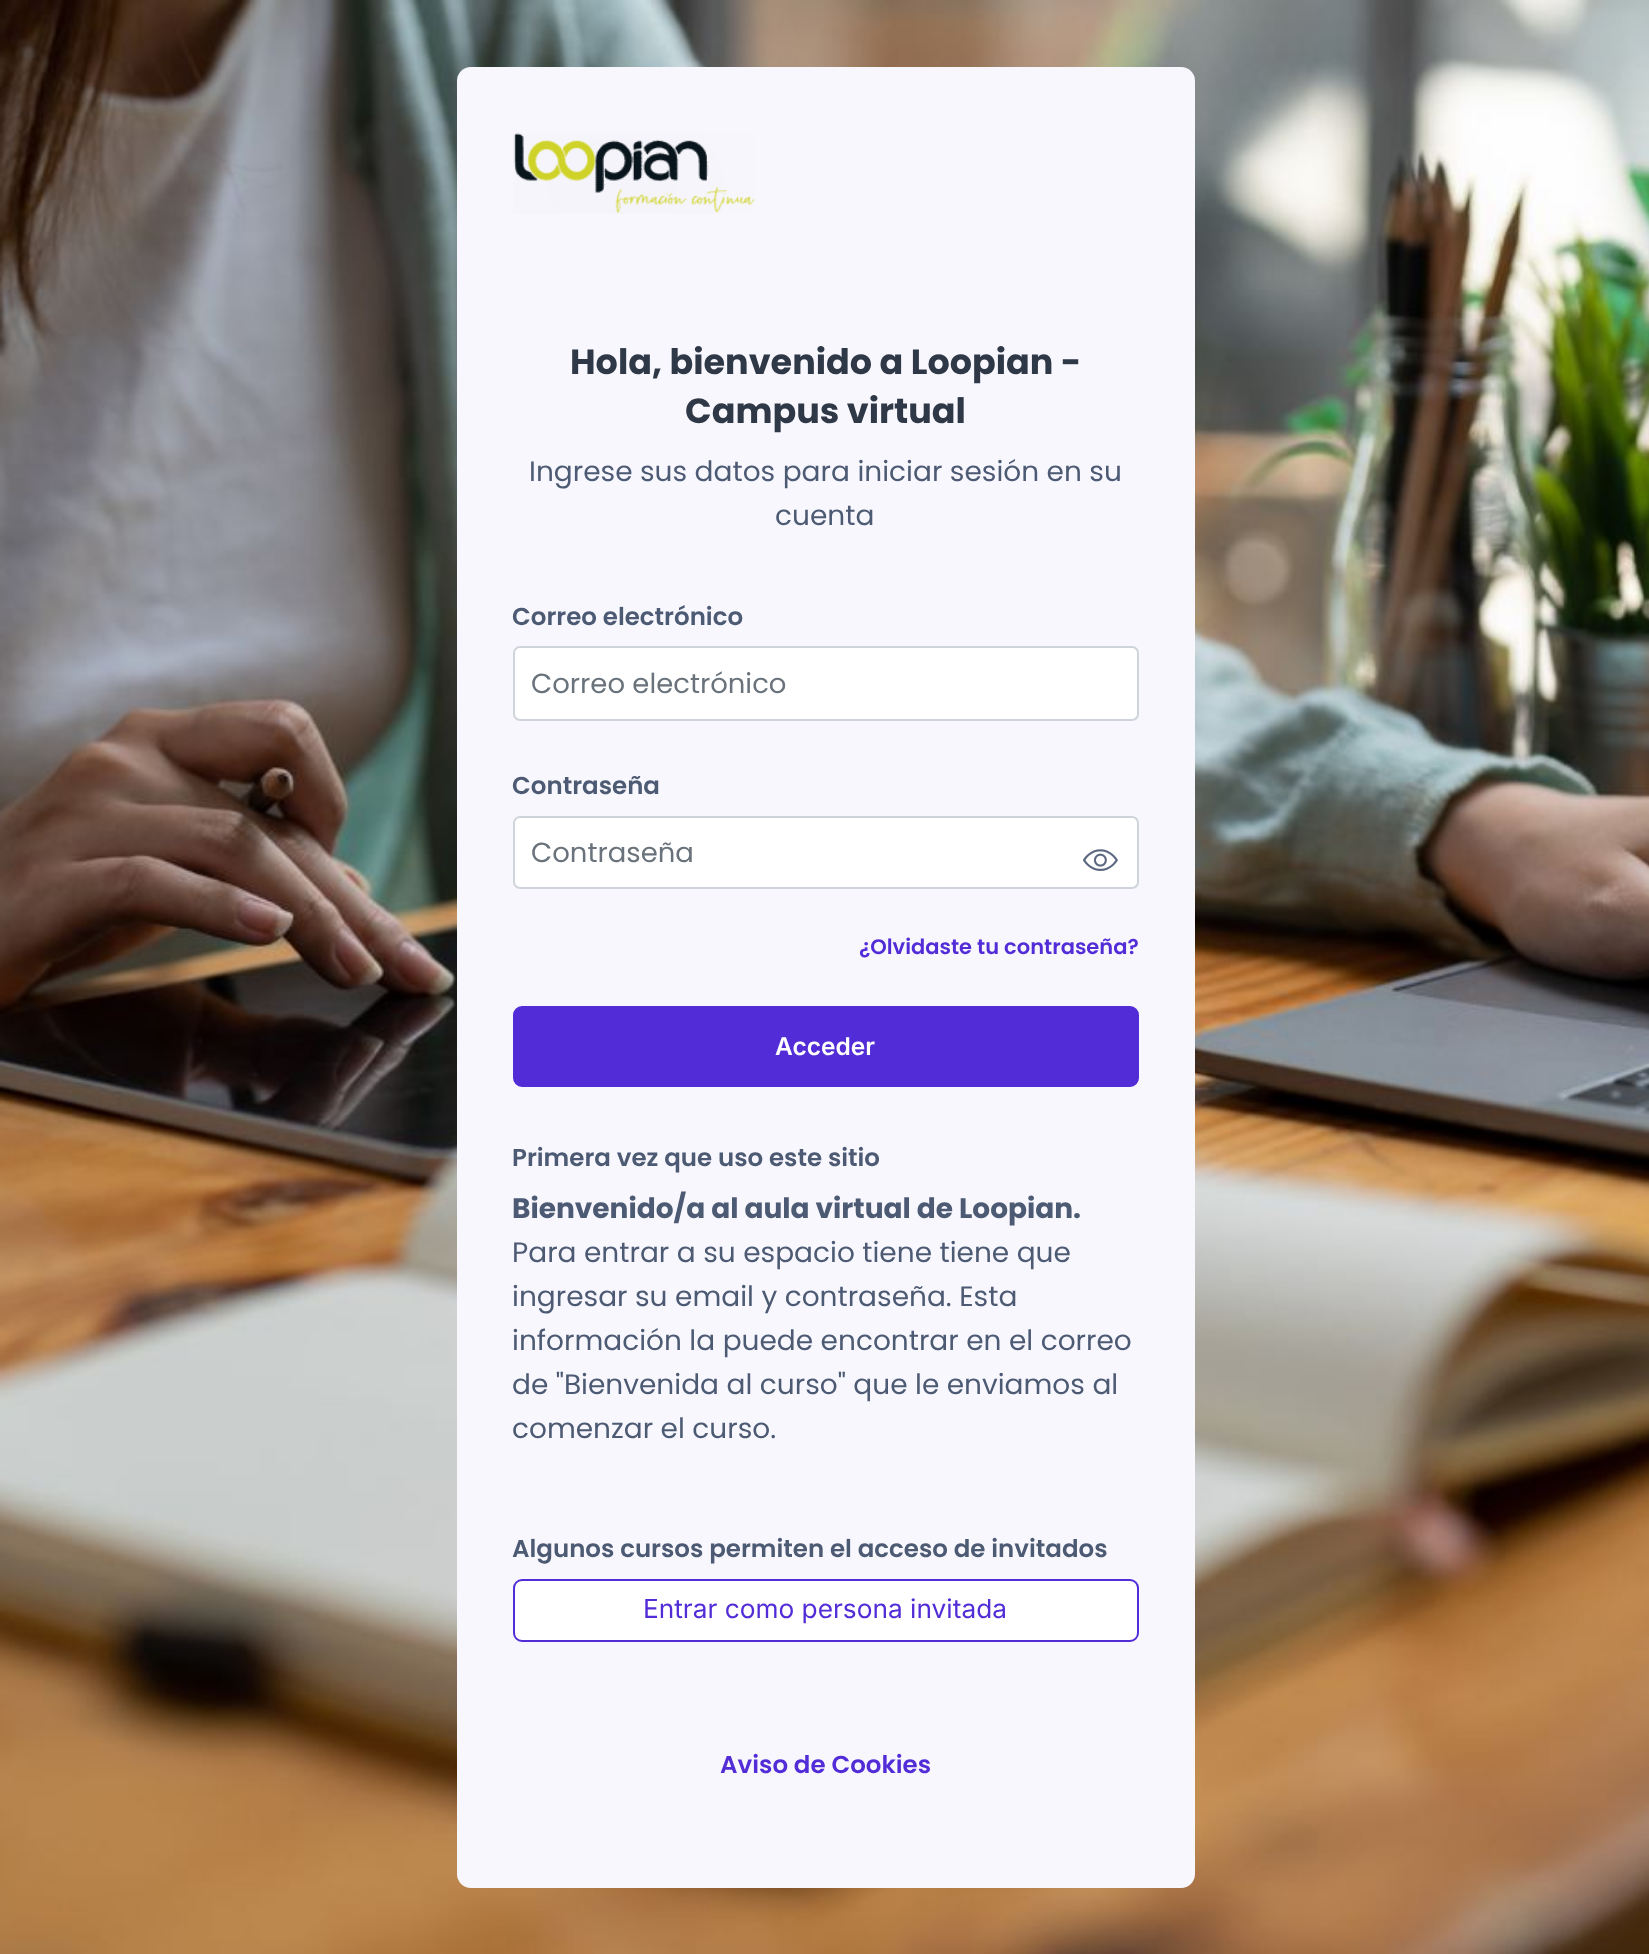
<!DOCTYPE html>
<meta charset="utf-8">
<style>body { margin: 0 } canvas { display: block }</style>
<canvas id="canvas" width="1649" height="1954"></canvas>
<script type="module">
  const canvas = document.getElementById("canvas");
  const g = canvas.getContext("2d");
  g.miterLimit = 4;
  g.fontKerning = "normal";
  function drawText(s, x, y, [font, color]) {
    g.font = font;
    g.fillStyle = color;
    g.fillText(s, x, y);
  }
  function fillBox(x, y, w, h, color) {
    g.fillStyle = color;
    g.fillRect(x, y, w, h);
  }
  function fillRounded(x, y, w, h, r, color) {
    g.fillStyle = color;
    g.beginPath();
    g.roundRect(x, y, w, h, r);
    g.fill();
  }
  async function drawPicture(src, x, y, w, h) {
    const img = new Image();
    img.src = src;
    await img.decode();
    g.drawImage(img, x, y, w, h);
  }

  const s1 = ["bold 35px Poppins", "#2F3847"];
  const s2 = ["28px Poppins", "#4C5A73"];
  const s3 = ["600 24.5px Poppins", "#4C5A73"];
  const s4 = ["27.5px Poppins", "#6A737B"];
  const s5 = ["600 21px Poppins", "#522DD7"];
  const s6 = ["600 24.5px Inter", "#FFFFFF"];
  const s7 = ["bold 28px Poppins", "#4C5A73"];
  const s8 = ["26.25px Inter", "#522DD7"];
  const s9 = ["600 24.5px Poppins", "#522DD7"];

  fillBox(0, 0, 1649, 1954, "#FFFFFF");
  await drawPicture("pic1.png", 0, 0, 1649, 1954);
  fillRounded(457, 67, 738, 1821, 14, "#F8F7FD");
  await drawPicture("pic2.png", 513, 133, 242, 81);
  drawText("Hola, bienvenido a Loopian -", 570, 374, s1);
  drawText("Campus virtual", 685, 423, s1);
  drawText("Ingrese sus datos para iniciar sesión en su", 529, 481, s2);
  drawText("cuenta", 775, 525, s2);
  drawText("Correo electrónico", 512, 625, s3);
  g.fillStyle = "#FFFFFF";
  g.beginPath();
  g.roundRect(514, 647, 624, 73, 6);
  g.fill();
  g.strokeStyle = "#CED4DA";
  g.lineWidth = 2;
  g.stroke();
  drawText("Correo electrónico", 531, 693, s4);
  drawText("Contraseña", 512, 794, s3);
  g.fillStyle = "#FFFFFF";
  g.beginPath();
  g.roundRect(514, 817, 624, 71, 6);
  g.fill();
  g.stroke();
  drawText("Contraseña", 531, 862, s4);
  await drawPicture("pic3.png", 1083, 849, 35, 22);
  drawText("¿Olvidaste tu contraseña?", 859, 954, s5);
  g.beginPath();
  g.roundRect(514, 1007, 624, 79, 8);
  g.fill();
  g.strokeStyle = "#522DD7";
  g.stroke();
  drawText("Acceder", 775, 1055, s6);
  drawText("Primera vez que uso este sitio", 512, 1166, s3);
  drawText("Bienvenido/a al aula virtual de Loopian.", 512, 1218, s7);
  drawText("Para entrar a su espacio tiene tiene que", 512, 1262, s2);
  drawText("ingresar su email y contraseña. Esta", 512, 1306, s2);
  drawText("información la puede encontrar en el correo", 512, 1350, s2);
  drawText("de \"Bienvenida al curso\" que le enviamos al", 512, 1394, s2);
  drawText("comenzar el curso.", 512, 1438, s2);
  drawText("Algunos cursos permiten el acceso de invitados", 512, 1557, s3);
  g.fillStyle = "#FFFFFF";
  g.beginPath();
  g.roundRect(514, 1580, 624, 61, 8);
  g.fill();
  g.stroke();
  drawText("Entrar como persona invitada", 643, 1618, s8);
  drawText("Aviso de Cookies", 720, 1773, s9);
</script>
